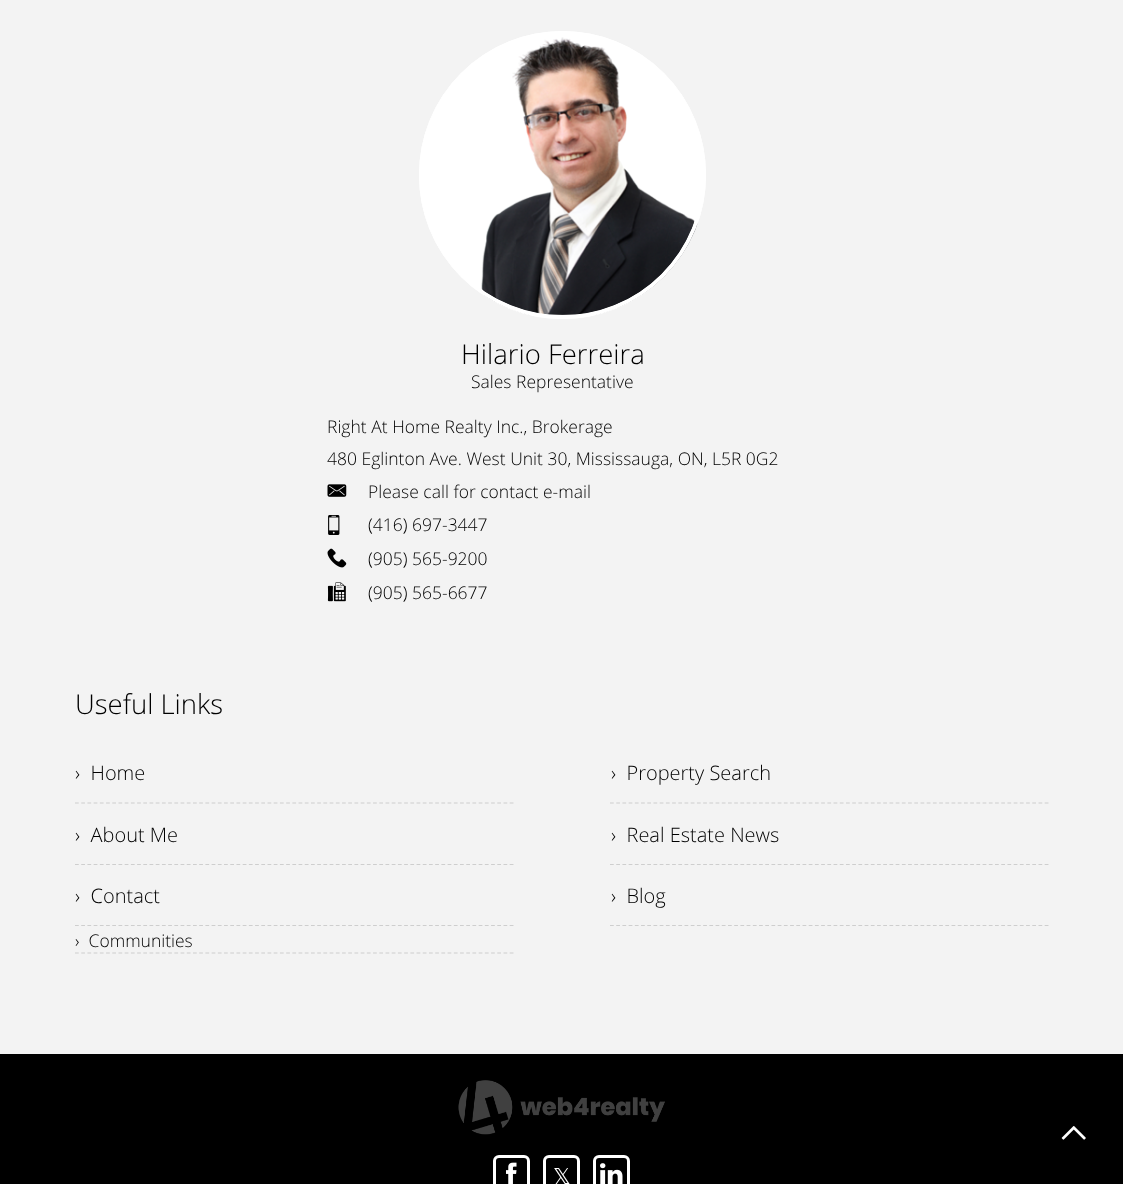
<!DOCTYPE html>
<meta charset="utf-8">
<style>body { margin: 0 } canvas { display: block }</style>
<canvas id="canvas" width="1123" height="1184"></canvas>
<script type="module">
  const canvas = document.getElementById("canvas");
  const g = canvas.getContext("2d");
  g.miterLimit = 4;
  g.fontKerning = "none";
  function drawText(s, x, y, [font, color]) {
    g.font = font;
    g.fillStyle = color;
    g.fillText(s, x, y);
  }
  function fillBox(x, y, w, h, color) {
    g.fillStyle = color;
    g.fillRect(x, y, w, h);
  }
  function fillRounded(x, y, w, h, r, color) {
    g.fillStyle = color;
    g.beginPath();
    g.roundRect(x, y, w, h, r);
    g.fill();
  }
  async function drawPicture(src, x, y, w, h) {
    const img = new Image();
    img.src = src;
    await img.decode();
    g.drawImage(img, x, y, w, h);
  }

  const s1 = ["300 27.5px Open Sans", "#000000"];
  const s2 = ["300 17.5px Open Sans", "#000000"];
  const s3 = ["300 20px Open Sans", "#000000"];
  const s4 = ["22px DejaVu Sans", "#FFFFFF"];

  fillBox(0, 0, 1123, 1184, "#F3F3F3");
  fillRounded(419, 31, 287, 288, 143.5, "#FFFFFF");
  await drawPicture("pic1.png", 481, 37, 217, 278);
  g.beginPath();
  g.roundRect(421, 33, 283, 284, 141.5);
  g.strokeStyle = "#FFFFFF";
  g.lineWidth = 4;
  g.stroke();
  await drawPicture("pic2.png", 481, 37, 214, 278);
  drawText("Hilario Ferreira", 461, 364, s1);
  drawText("Sales Representative", 471, 388, s2);
  drawText("Right At Home Realty Inc., Brokerage", 327, 433, s2);
  drawText("480 Eglinton Ave. West Unit 30, Mississauga, ON, L5R 0G2", 327, 465, s2);
  await drawPicture("pic3.png", 327, 484, 20, 13);
  drawText("Please call for contact e-mail", 368, 498, s2);
  await drawPicture("pic4.png", 328, 515, 12, 20);
  drawText("(416) 697-3447", 368, 531, s2);
  await drawPicture("pic5.png", 327, 548, 20, 20);
  drawText("(905) 565-9200", 368, 565, s2);
  await drawPicture("pic6.png", 327, 582, 19, 20);
  drawText("(905) 565-6677", 368, 599, s2);
  drawText("Useful Links", 75, 714, s1);
  g.beginPath();
  g.moveTo(75, 803);
  g.lineTo(514, 803);
  g.strokeStyle = "#CECECE";
  g.lineWidth = 1.2;
  g.setLineDash([3.75, 2.46]);
  g.stroke();
  drawText("›  Home", 75, 780, s3);
  g.beginPath();
  g.moveTo(610, 803);
  g.lineTo(1049, 803);
  g.stroke();
  drawText("›  Property Search", 611, 780, s3);
  g.beginPath();
  g.moveTo(75, 864.5);
  g.lineTo(514, 864.5);
  g.stroke();
  drawText("›  About Me", 75, 842, s3);
  g.beginPath();
  g.moveTo(610, 864.5);
  g.lineTo(1049, 864.5);
  g.stroke();
  drawText("›  Real Estate News", 611, 842, s3);
  g.beginPath();
  g.moveTo(75, 925.5);
  g.lineTo(514, 925.5);
  g.stroke();
  drawText("›  Contact", 75, 903, s3);
  g.beginPath();
  g.moveTo(610, 925.5);
  g.lineTo(1049, 925.5);
  g.stroke();
  drawText("›  Blog", 611, 903, s3);
  g.beginPath();
  g.moveTo(75, 953);
  g.lineTo(514, 953);
  g.stroke();
  drawText("›  Communities", 75, 947, s2);
  fillBox(0, 1054, 1123, 130, "#000000");
  await drawPicture("pic7.png", 458, 1080, 207, 55);
  g.beginPath();
  g.roundRect(494.5, 1156.5, 34, 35, 4.5);
  g.strokeStyle = "#FFFFFF";
  g.lineWidth = 3;
  g.setLineDash([]);
  g.stroke();
  await drawPicture("pic8.png", 506, 1162, 11, 22);
  g.beginPath();
  g.roundRect(544.5, 1156.5, 34, 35, 4.5);
  g.stroke();
  drawText("𝕏", 553, 1184, s4);
  g.beginPath();
  g.roundRect(594.5, 1156.5, 34, 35, 4.5);
  g.stroke();
  await drawPicture("pic9.png", 600, 1163, 23, 21);
  await drawPicture("pic10.png", 1061, 1126, 25, 14);
</script>
